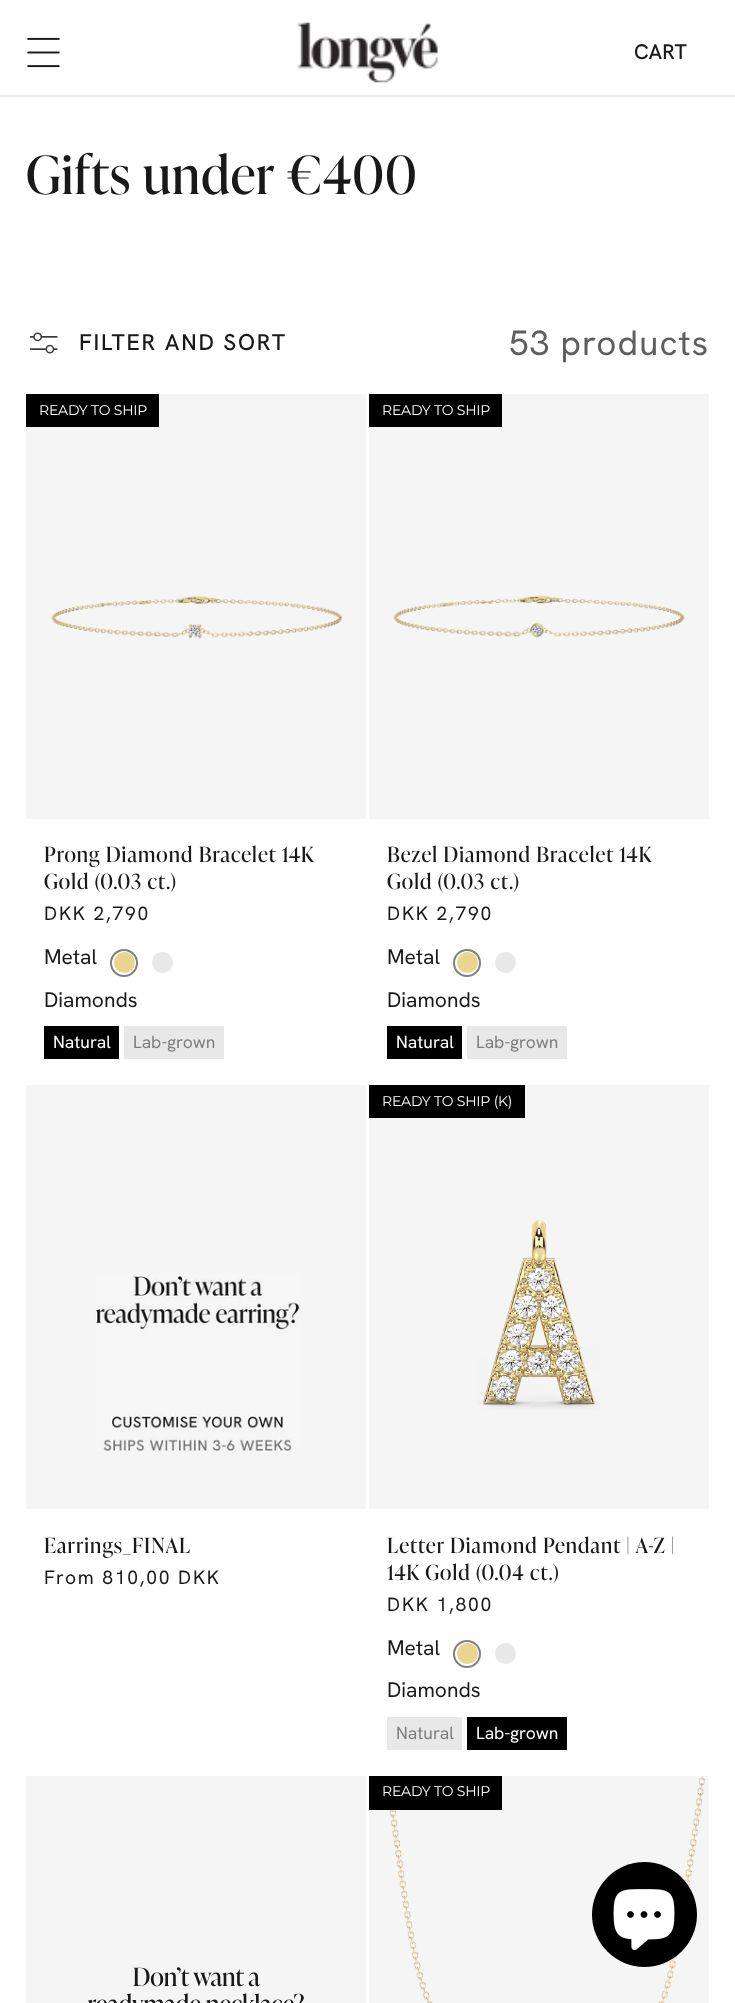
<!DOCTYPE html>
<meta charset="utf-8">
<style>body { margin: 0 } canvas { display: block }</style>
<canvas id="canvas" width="735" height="2003"></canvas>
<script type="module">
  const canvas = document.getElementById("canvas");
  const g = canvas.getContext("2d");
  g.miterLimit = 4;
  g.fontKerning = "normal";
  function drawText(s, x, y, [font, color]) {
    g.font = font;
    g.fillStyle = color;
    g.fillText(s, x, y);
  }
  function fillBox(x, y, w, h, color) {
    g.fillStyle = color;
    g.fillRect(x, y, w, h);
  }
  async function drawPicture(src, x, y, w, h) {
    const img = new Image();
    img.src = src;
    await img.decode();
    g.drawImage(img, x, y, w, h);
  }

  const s1 = ["500 21px Hanken Grotesk", "#191919"];
  const s2 = ["52.5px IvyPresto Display", "#191919"];
  const s3 = ["500 22.75px Hanken Grotesk", "#191919"];
  const s4 = ["35px Hanken Grotesk", "#5E5E5E"];
  const s5 = ["100 14px Montserrat", "#FFFFFF"];
  const s6 = ["21px IvyPresto Display", "#191919"];
  const s7 = ["19.25px Hanken Grotesk", "#191919"];
  const s8 = ["21px Hanken Grotesk", "#191919"];
  const s9 = ["17.5px Hanken Grotesk", "#FFFFFF"];
  const s10 = ["17.5px Hanken Grotesk", "#7E7E7E"];

  fillBox(0, 0, 735, 2003, "#FFFFFF");
  fillBox(0, 95, 735, 2, "#EDEDED");
  await drawPicture("pic1.png", 27, 37, 33, 31);
  await drawPicture("pic2.png", 297, 22, 141, 61);
  drawText("CART", 634, 59, s1);
  g.letterSpacing = "1.05px";
  drawText("Gifts under €400", 26, 194, s2);
  await drawPicture("pic3.png", 29, 332, 29, 22);
  g.letterSpacing = "1.75px";
  drawText("FILTER AND SORT", 79, 350, s3);
  g.letterSpacing = "1.05px";
  drawText("53 products", 509, 355, s4);
  fillBox(26, 394, 340, 425, "#F5F5F5");
  fillBox(26, 394, 133, 33, "#000000");
  g.letterSpacing = "-0.2px";
  drawText("READY TO SHIP", 39, 415, s5);
  await drawPicture("pic4.png", 51, 595, 292, 44);
  g.letterSpacing = "1.05px";
  drawText("Prong Diamond Bracelet 14K", 44, 862, s6);
  drawText("Gold (0.03 ct.)", 44, 889, s6);
  g.letterSpacing = "1.75px";
  drawText("DKK 2,790", 44, 920, s7);
  g.letterSpacing = "0px";
  drawText("Metal", 44, 964, s8);
  g.fillStyle = "#E9D590";
  g.beginPath();
  g.arc(124.5, 962.5, 10.5, 0, Math.PI * 2);
  g.fill();
  g.beginPath();
  g.arc(124, 963, 13, 0, Math.PI * 2);
  g.strokeStyle = "#808080";
  g.lineWidth = 2;
  g.stroke();
  g.fillStyle = "#E8E8E8";
  g.beginPath();
  g.arc(162.5, 962.5, 10.5, 0, Math.PI * 2);
  g.fill();
  drawText("Diamonds", 44, 1007, s8);
  fillBox(44, 1026, 75, 33, "#000000");
  drawText("Natural", 53, 1048, s9);
  fillBox(124, 1026, 100, 33, "#E8E8E8");
  drawText("Lab-grown", 133, 1048, s10);
  fillBox(369, 394, 340, 425, "#F5F5F5");
  fillBox(369, 394, 133, 33, "#000000");
  g.letterSpacing = "-0.2px";
  drawText("READY TO SHIP", 382, 415, s5);
  await drawPicture("pic5.png", 393, 595, 292, 43);
  g.letterSpacing = "1.05px";
  drawText("Bezel Diamond Bracelet 14K", 387, 862, s6);
  drawText("Gold (0.03 ct.)", 387, 889, s6);
  g.letterSpacing = "1.75px";
  drawText("DKK 2,790", 387, 920, s7);
  g.letterSpacing = "0px";
  drawText("Metal", 387, 964, s8);
  g.fillStyle = "#E9D590";
  g.beginPath();
  g.arc(467.5, 962.5, 10.5, 0, Math.PI * 2);
  g.fill();
  g.beginPath();
  g.arc(467, 963, 13, 0, Math.PI * 2);
  g.stroke();
  g.fillStyle = "#E8E8E8";
  g.beginPath();
  g.arc(505.5, 962.5, 10.5, 0, Math.PI * 2);
  g.fill();
  drawText("Diamonds", 387, 1007, s8);
  fillBox(387, 1026, 75, 33, "#000000");
  drawText("Natural", 396, 1048, s9);
  fillBox(467, 1026, 100, 33, "#E8E8E8");
  drawText("Lab-grown", 476, 1048, s10);
  fillBox(26, 1085, 340, 424, "#F5F5F5");
  await drawPicture("pic6.png", 95, 1275, 206, 177);
  g.letterSpacing = "1.05px";
  drawText("Earrings_FINAL", 44, 1553, s6);
  g.letterSpacing = "1.75px";
  drawText("From 810,00 DKK", 44, 1584, s7);
  fillBox(369, 1085, 340, 424, "#F5F5F5");
  fillBox(369, 1085, 156, 33, "#000000");
  g.letterSpacing = "-0.2px";
  drawText("READY TO SHIP (K)", 382, 1106, s5);
  await drawPicture("pic7.png", 477, 1220, 123, 190);
  g.letterSpacing = "1.05px";
  drawText("Letter Diamond Pendant | A-Z |", 387, 1553, s6);
  drawText("14K Gold (0.04 ct.)", 387, 1580, s6);
  g.letterSpacing = "1.75px";
  drawText("DKK 1,800", 387, 1611, s7);
  g.letterSpacing = "0px";
  drawText("Metal", 387, 1655, s8);
  g.fillStyle = "#E9D590";
  g.beginPath();
  g.arc(467.5, 1653.5, 10.5, 0, Math.PI * 2);
  g.fill();
  g.beginPath();
  g.arc(467, 1654, 13, 0, Math.PI * 2);
  g.stroke();
  g.fillStyle = "#E8E8E8";
  g.beginPath();
  g.arc(505.5, 1653.5, 10.5, 0, Math.PI * 2);
  g.fill();
  drawText("Diamonds", 387, 1697, s8);
  fillBox(387, 1717, 75, 33, "#E8E8E8");
  drawText("Natural", 396, 1739, s10);
  fillBox(467, 1717, 100, 33, "#000000");
  drawText("Lab-grown", 476, 1739, s9);
  fillBox(26, 1776, 340, 227, "#F5F5F5");
  await drawPicture("pic8.png", 88, 1967, 216, 36);
  fillBox(369, 1776, 340, 227, "#F5F5F5");
  await drawPicture("pic9.png", 389, 1776, 317, 227);
  fillBox(369, 1776, 133, 34, "#000000");
  g.letterSpacing = "-0.2px";
  drawText("READY TO SHIP", 382, 1796, s5);
  g.fillStyle = "#000000";
  g.beginPath();
  g.arc(644.5, 1914.5, 52.5, 0, Math.PI * 2);
  g.fill();
  await drawPicture("pic10.png", 613, 1889, 62, 61);
</script>
